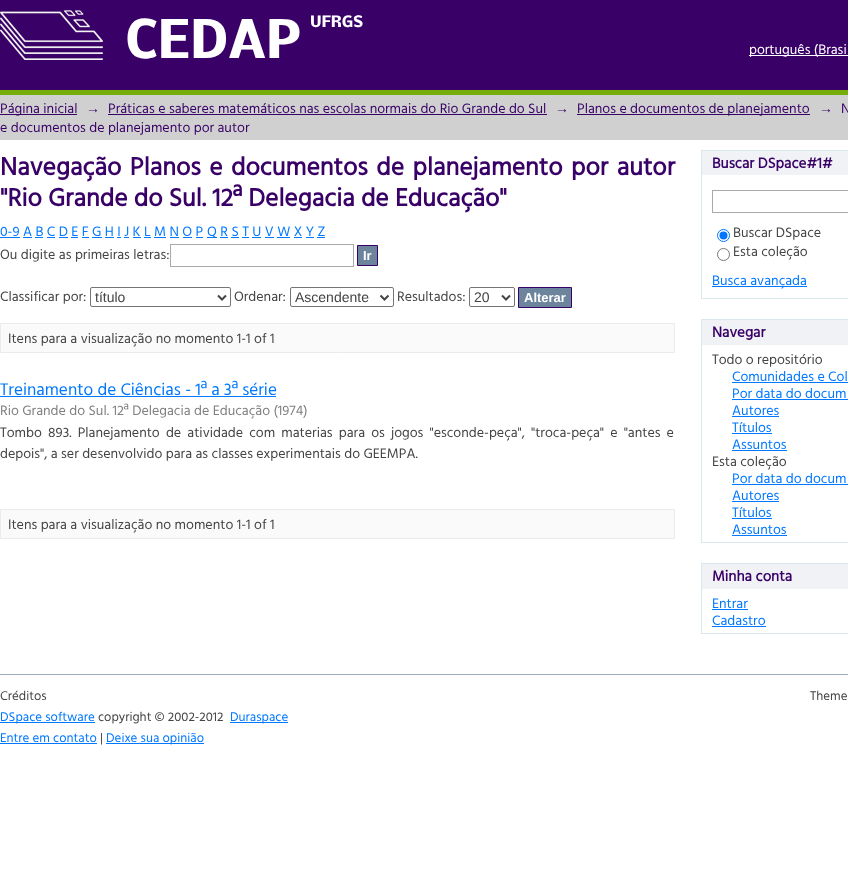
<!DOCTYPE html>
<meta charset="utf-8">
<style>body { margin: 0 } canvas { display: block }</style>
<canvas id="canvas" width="848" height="896"></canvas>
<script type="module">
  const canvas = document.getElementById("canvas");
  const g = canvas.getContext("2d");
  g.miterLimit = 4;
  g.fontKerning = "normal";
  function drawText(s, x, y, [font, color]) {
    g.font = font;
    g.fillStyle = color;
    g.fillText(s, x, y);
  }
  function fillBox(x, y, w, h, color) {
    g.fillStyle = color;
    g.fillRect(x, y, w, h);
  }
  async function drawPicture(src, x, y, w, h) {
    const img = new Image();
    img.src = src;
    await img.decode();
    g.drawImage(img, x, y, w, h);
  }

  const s1 = ["bold 49px Nobile", "#FFFFFF"];
  const s2 = ["bold 14.5px Nobile", "#FFFFFF"];
  const s3 = ["14px Hind Vadodara", "#FFFFFF"];
  const s4 = ["14px Hind Vadodara", "#390067"];
  const s5 = ["14px Liberation Sans", "#390067"];
  const s6 = ["bold 25.5px Hind Vadodara", "#390067"];
  const s7 = ["14px Hind Vadodara", "#0078FF"];
  const s8 = ["14px Hind Vadodara", "#444444"];
  const s9 = ["bold 13px Liberation Sans", "#FFFFFF"];
  const s10 = ["14px Liberation Sans", "#444444"];
  const s11 = ["17.25px Hind Vadodara", "#0078FF"];
  const s12 = ["14px Hind Vadodara", "#808080"];
  const s13 = ["bold 15px Hind Vadodara", "#390067"];
  const s14 = ["13px Hind Vadodara", "#444444"];
  const s15 = ["13px Hind Vadodara", "#0078FF"];

  fillBox(0, 0, 848, 896, "#FFFFFF");
  fillBox(0, 0, 848, 90, "#390067");
  await drawPicture("pic1.png", 0, 10, 103, 50);
  drawText("CEDAP", 125, 58, s1);
  drawText("UFRGS", 310, 27, s2);
  fillBox(749, 55, 99, 1, "#FFFFFF");
  drawText("português (Brasi", 749, 54, s3);
  fillBox(0, 95, 848, 45, "#D0D0D0");
  fillBox(0, 90, 848, 5, "#75AD0A");
  fillBox(0, 114, 77, 1, "#390067");
  drawText("Página inicial", 0, 113, s4);
  drawText("→", 86, 113, s5);
  drawText("Práticas e saberes matemáticos nas escolas normais do Rio Grande do Sul", 108, 113, s4);
  fillBox(108, 114, 439, 1, "#390067");
  drawText("→", 555, 113, s5);
  fillBox(577, 114, 233, 1, "#390067");
  drawText("Planos e documentos de planejamento", 577, 113, s4);
  drawText("→", 819, 113, s5);
  drawText("N", 841, 113, s4);
  drawText("e documentos de planejamento por autor", 0, 132, s4);
  g.wordSpacing = "2.25px";
  drawText("Navegação Planos e documentos de planejamento por autor", 0, 175, s6);
  g.wordSpacing = "0px";
  drawText("\"Rio Grande do Sul. 12ª Delegacia de Educação\"", 0, 206, s6);
  drawText("0-9 A B C D E F G H I J K L M N O P", 0, 236, s7);
  fillBox(0, 237, 20, 1, "#0078FF");
  fillBox(207, 237, 10, 1, "#0078FF");
  drawText("Q R S T U V W X Y Z", 207, 236, s7);
  fillBox(23, 237, 9, 1, "#0078FF");
  fillBox(35, 237, 8, 1, "#0078FF");
  fillBox(47, 237, 8, 1, "#0078FF");
  fillBox(59, 237, 9, 1, "#0078FF");
  fillBox(71, 237, 7, 1, "#0078FF");
  fillBox(82, 237, 7, 1, "#0078FF");
  fillBox(92, 237, 10, 1, "#0078FF");
  fillBox(105, 237, 9, 1, "#0078FF");
  fillBox(117, 237, 4, 1, "#0078FF");
  fillBox(124, 237, 5, 1, "#0078FF");
  fillBox(133, 237, 8, 1, "#0078FF");
  fillBox(144, 237, 7, 1, "#0078FF");
  fillBox(154, 237, 12, 1, "#0078FF");
  fillBox(170, 237, 9, 1, "#0078FF");
  fillBox(183, 237, 9, 1, "#0078FF");
  fillBox(196, 237, 7, 1, "#0078FF");
  fillBox(220, 237, 8, 1, "#0078FF");
  fillBox(231, 237, 8, 1, "#0078FF");
  fillBox(242, 237, 7, 1, "#0078FF");
  fillBox(252, 237, 9, 1, "#0078FF");
  fillBox(265, 237, 9, 1, "#0078FF");
  fillBox(277, 237, 13, 1, "#0078FF");
  fillBox(294, 237, 8, 1, "#0078FF");
  fillBox(306, 237, 8, 1, "#0078FF");
  fillBox(317, 237, 8, 1, "#0078FF");
  drawText("Ou digite as primeiras letras:", 0, 259, s8);
  g.strokeStyle = "#AAAAAA";
  g.strokeRect(170.5, 244.5, 183, 22);
  g.fillStyle = "#6D859C";
  g.beginPath();
  g.rect(357.5, 245.5, 20, 20);
  g.fill();
  g.strokeStyle = "#390067";
  g.stroke();
  drawText("Ir", 363, 260, s9);
  drawText("Classificar por:", 0, 301, s8);
  g.beginPath();
  g.roundRect(90.5, 287.5, 140, 19, 1.5);
  g.strokeStyle = "#767676";
  g.stroke();
  g.beginPath();
  g.moveTo(218, 295.5);
  g.lineTo(222, 299.5);
  g.lineTo(226, 295.5);
  g.strokeStyle = "#444444";
  g.lineWidth = 2;
  g.stroke();
  drawText("título", 95, 302, s10);
  drawText("Ordenar:", 234, 301, s8);
  g.beginPath();
  g.roundRect(290.5, 287.5, 103, 19, 1.5);
  g.strokeStyle = "#767676";
  g.lineWidth = 1;
  g.stroke();
  g.beginPath();
  g.moveTo(380.5, 295.5);
  g.lineTo(384.5, 299.5);
  g.lineTo(388.5, 295.5);
  g.strokeStyle = "#444444";
  g.lineWidth = 2;
  g.stroke();
  drawText("Ascendente", 295, 302, s10);
  drawText("Resultados:", 397, 301, s8);
  g.beginPath();
  g.roundRect(469.5, 287.5, 45, 19, 1.5);
  g.strokeStyle = "#767676";
  g.lineWidth = 1;
  g.stroke();
  g.beginPath();
  g.moveTo(502, 295.5);
  g.lineTo(506, 299.5);
  g.lineTo(510, 295.5);
  g.strokeStyle = "#444444";
  g.lineWidth = 2;
  g.stroke();
  drawText("20", 474, 302, s10);
  g.fillStyle = "#6D859C";
  g.beginPath();
  g.rect(518.5, 287.5, 53, 20);
  g.fill();
  g.strokeStyle = "#390067";
  g.lineWidth = 1;
  g.stroke();
  drawText("Alterar", 524, 302, s9);
  g.fillStyle = "#FAFAFA";
  g.beginPath();
  g.rect(0.5, 323.5, 674, 29);
  g.fill();
  g.strokeStyle = "#EBEBEB";
  g.stroke();
  drawText("Itens para a visualização no momento 1-1 of 1", 8, 343, s8);
  drawText("Treinamento de Ciências - 1ª a 3ª série", 0, 395, s11);
  fillBox(0, 396, 276, 1, "#0078FF");
  drawText("Rio Grande do Sul. 12ª Delegacia de Educação (1974)", 0, 415, s12);
  g.wordSpacing = "2.75px";
  drawText("Tombo 893. Planejamento de atividade com materias para os jogos \"esconde-peça\", \"troca-peça\" e \"antes e", 0, 437, s8);
  g.wordSpacing = "0px";
  drawText("depois\", a ser desenvolvido para as classes experimentais do GEEMPA.", 0, 458, s8);
  g.fillStyle = "#FAFAFA";
  g.beginPath();
  g.rect(0.5, 509.5, 674, 29);
  g.fill();
  g.stroke();
  drawText("Itens para a visualização no momento 1-1 of 1", 8, 529, s8);
  fillBox(702, 151, 146, 24, "#F0F2F5");
  fillBox(701, 150, 147, 1, "#D8E8EB");
  fillBox(701, 150, 1, 25, "#D8E8EB");
  drawText("Buscar DSpace#1#", 712, 168, s13);
  fillBox(701, 298, 147, 1, "#D8E8EB");
  fillBox(701, 175, 1, 124, "#D8E8EB");
  g.strokeStyle = "#AAAAAA";
  g.strokeRect(712.5, 190.5, 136, 22);
  g.beginPath();
  g.arc(723.5, 235.5, 6, 0, Math.PI * 2);
  g.strokeStyle = "#0075FF";
  g.stroke();
  g.fillStyle = "#0075FF";
  g.beginPath();
  g.arc(723.5, 235.5, 4, 0, Math.PI * 2);
  g.fill();
  drawText("Buscar DSpace", 733, 237, s8);
  g.beginPath();
  g.arc(723.5, 254.5, 6, 0, Math.PI * 2);
  g.strokeStyle = "#767676";
  g.stroke();
  drawText("Esta coleção", 733, 256, s8);
  fillBox(712, 286, 95, 1, "#0078FF");
  drawText("Busca avançada", 712, 285, s7);
  fillBox(702, 320, 146, 25, "#F0F2F5");
  fillBox(701, 319, 147, 1, "#D8E8EB");
  fillBox(701, 319, 1, 26, "#D8E8EB");
  drawText("Navegar", 712, 337, s13);
  fillBox(701, 542, 147, 1, "#D8E8EB");
  fillBox(701, 345, 1, 198, "#D8E8EB");
  drawText("Todo o repositório", 712, 364, s8);
  drawText("Comunidades e Col", 732, 381, s7);
  fillBox(732, 382, 116, 1, "#0078FF");
  drawText("Por data do docum", 732, 398, s7);
  fillBox(732, 399, 116, 1, "#0078FF");
  drawText("Autores", 732, 415, s7);
  fillBox(732, 416, 47, 1, "#0078FF");
  drawText("Títulos", 732, 432, s7);
  fillBox(732, 433, 40, 1, "#0078FF");
  drawText("Assuntos", 732, 449, s7);
  fillBox(732, 450, 55, 1, "#0078FF");
  drawText("Esta coleção", 712, 466, s8);
  drawText("Por data do docum", 732, 483, s7);
  fillBox(732, 484, 116, 1, "#0078FF");
  drawText("Autores", 732, 500, s7);
  fillBox(732, 501, 47, 1, "#0078FF");
  drawText("Títulos", 732, 517, s7);
  fillBox(732, 518, 40, 1, "#0078FF");
  drawText("Assuntos", 732, 534, s7);
  fillBox(732, 535, 55, 1, "#0078FF");
  fillBox(702, 564, 146, 25, "#F0F2F5");
  fillBox(701, 563, 147, 1, "#D8E8EB");
  fillBox(701, 563, 1, 26, "#D8E8EB");
  drawText("Minha conta", 712, 581, s13);
  fillBox(701, 633, 147, 1, "#D8E8EB");
  fillBox(701, 589, 1, 45, "#D8E8EB");
  drawText("Entrar", 712, 608, s7);
  fillBox(712, 609, 36, 1, "#0078FF");
  drawText("Cadastro", 712, 625, s7);
  fillBox(712, 626, 54, 1, "#0078FF");
  fillBox(0, 674, 848, 1, "#9CACBA");
  drawText("Créditos", 0, 700, s14);
  fillBox(0, 722, 95, 1, "#0078FF");
  drawText("DSpace software", 0, 721, s15);
  drawText("copyright © 2002-2012", 98, 721, s14);
  fillBox(230, 722, 58, 1, "#0078FF");
  drawText("Duraspace", 230, 721, s15);
  drawText("Theme", 810, 700, s14);
  drawText("Entre em contato", 0, 742, s15);
  fillBox(0, 743, 97, 1, "#0078FF");
  drawText("|", 100, 742, s14);
  fillBox(106, 743, 98, 1, "#0078FF");
  drawText("Deixe sua opinião", 106, 742, s15);
</script>
